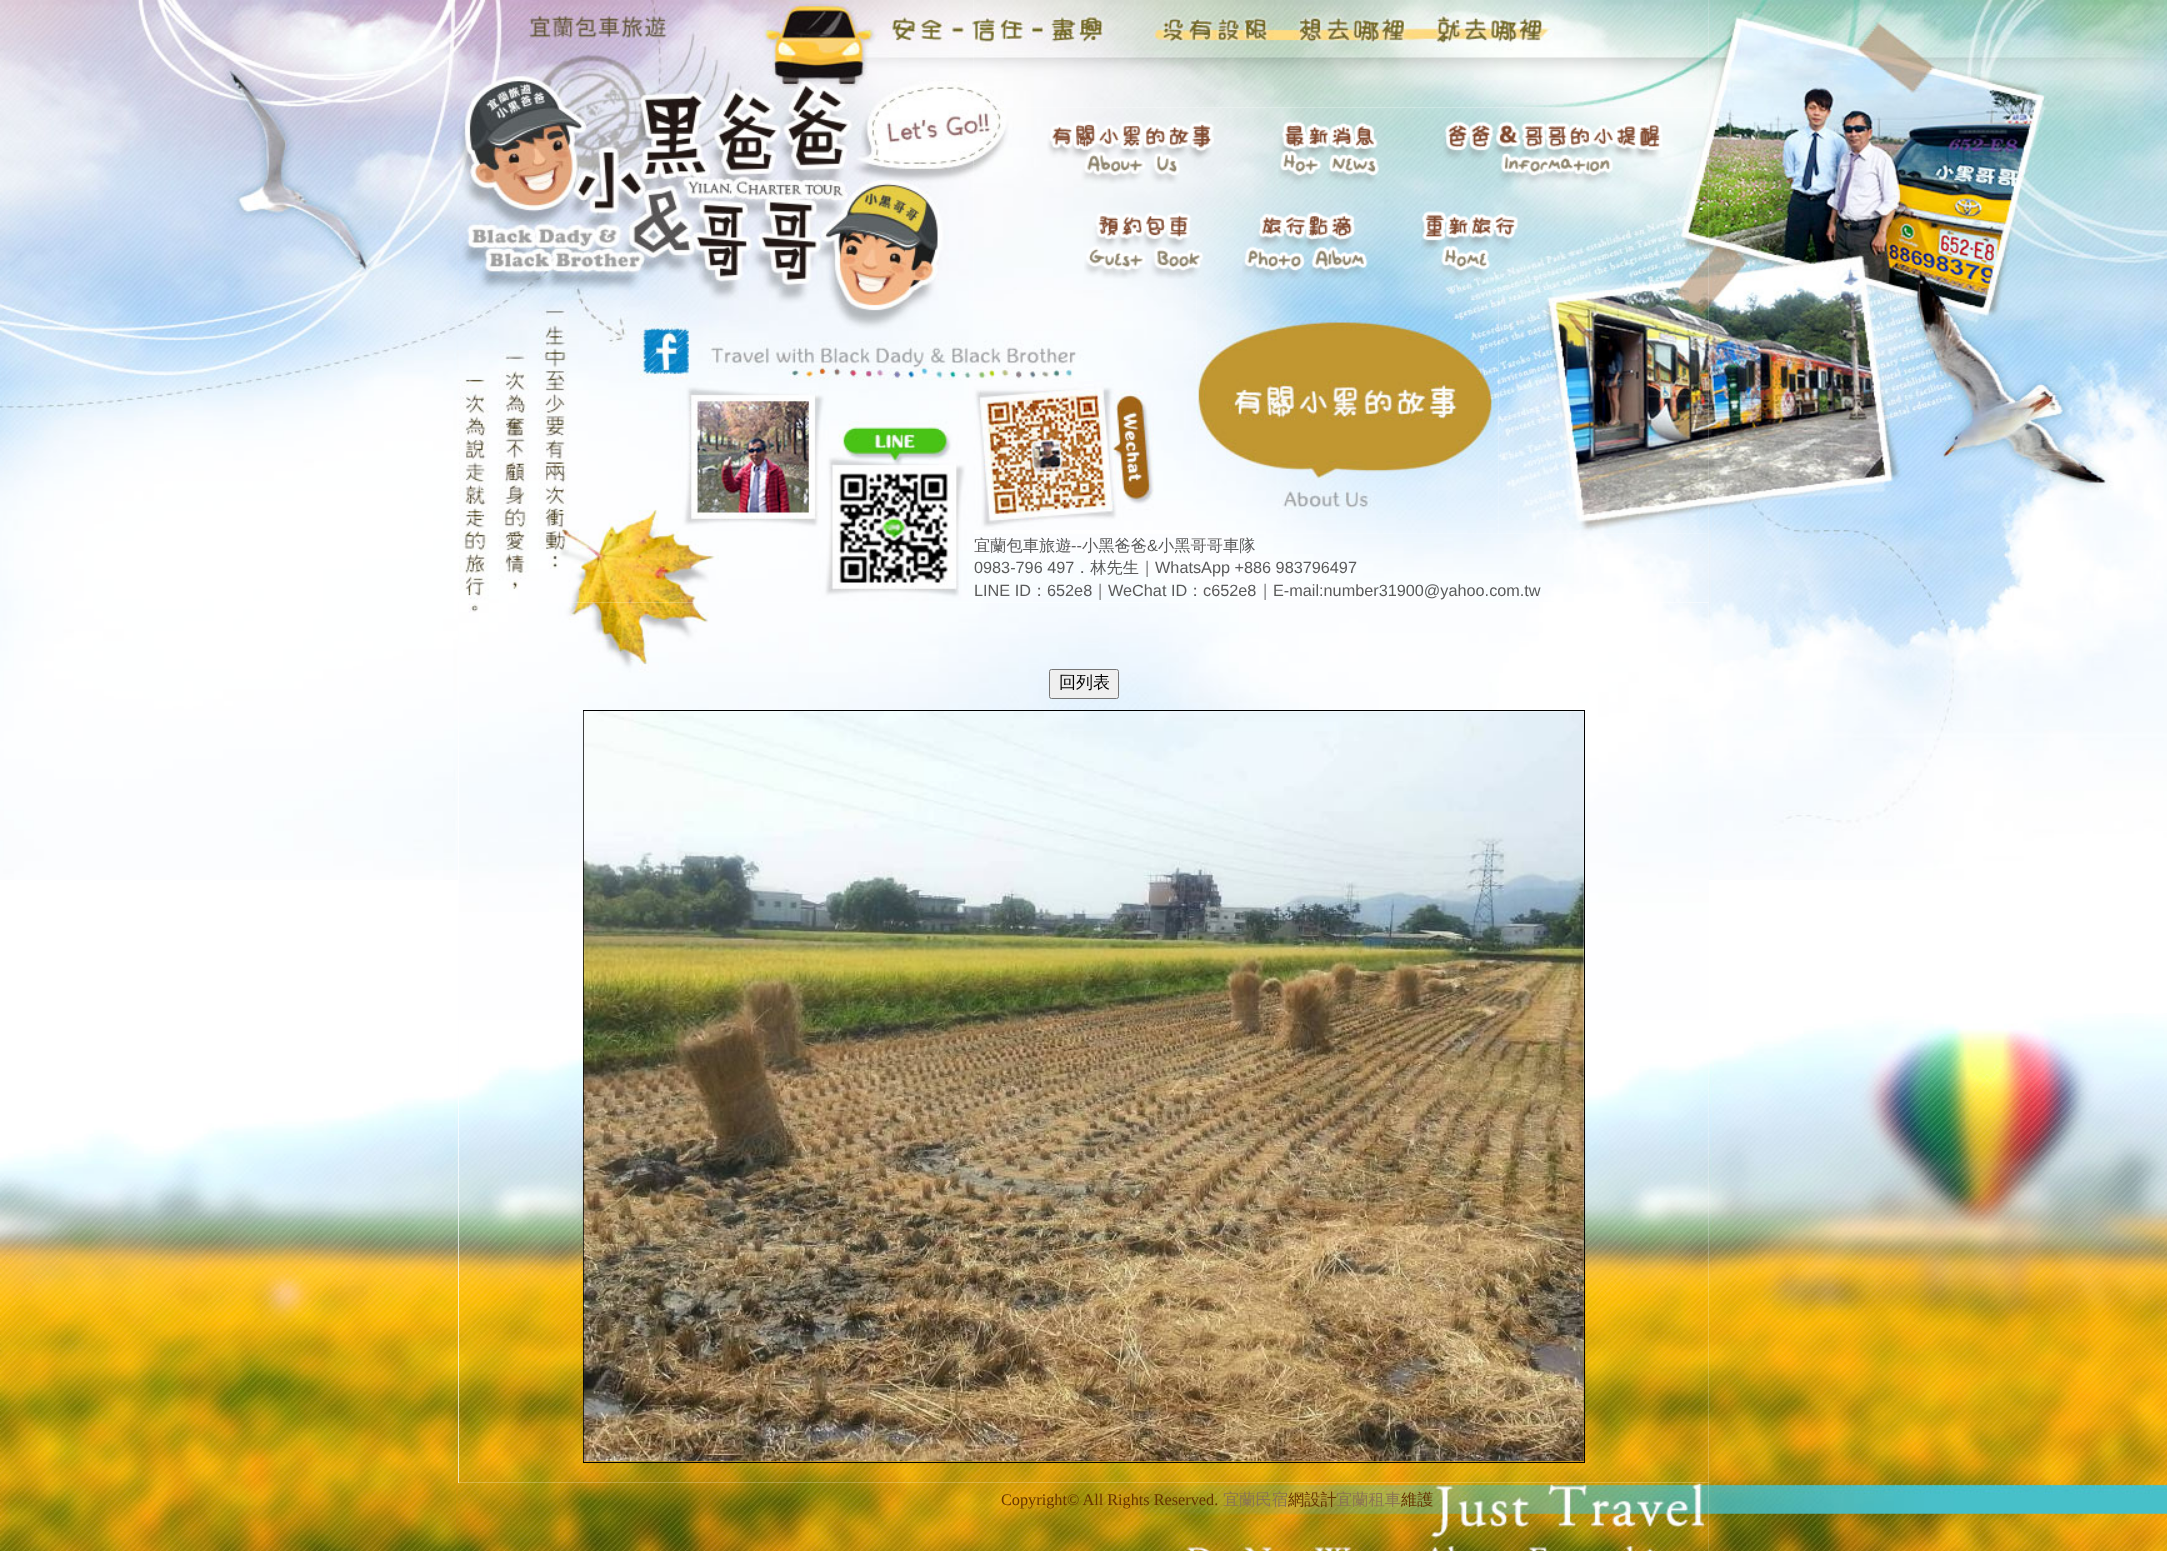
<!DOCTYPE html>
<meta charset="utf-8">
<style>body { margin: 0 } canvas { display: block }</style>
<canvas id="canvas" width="2167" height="1551"></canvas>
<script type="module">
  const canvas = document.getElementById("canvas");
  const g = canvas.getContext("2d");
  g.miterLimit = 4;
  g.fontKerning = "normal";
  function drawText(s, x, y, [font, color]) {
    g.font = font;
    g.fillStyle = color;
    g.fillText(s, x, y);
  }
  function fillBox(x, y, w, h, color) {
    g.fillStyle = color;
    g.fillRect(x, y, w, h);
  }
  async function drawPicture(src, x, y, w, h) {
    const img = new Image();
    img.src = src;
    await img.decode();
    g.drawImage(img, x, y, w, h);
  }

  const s1 = ["500 16.25px WenQuanYi Zen Hei", "#5A5A5A"];
  const s2 = ["16.25px Liberation Sans", "#5A5A5A"];
  const s3 = ["500 17px WenQuanYi Zen Hei", "#000000"];
  const s4 = ["16.25px Liberation Serif", "#663300"];
  const s5 = ["500 16.25px WenQuanYi Zen Hei", "#8B7354"];
  const s6 = ["500 16.25px WenQuanYi Zen Hei", "#663300"];

  fillBox(0, 0, 2167, 1551, "#FFFFFF");
  await drawPicture("pic1.png", 0, 1013, 2167, 538);
  await drawPicture("pic2.png", 0, 0, 2167, 880);
  await drawPicture("pic5.png", 973, 107, 736, 183);
  fillBox(458, 602, 1251, 881, "#FEFEFF");
  await drawPicture("pic17.png", 459, 602, 1250, 310);
  await drawPicture("pic3.png", 458, 0, 516, 603);
  await drawPicture("pic4.png", 973, 0, 736, 108);
  await drawPicture("pic6.png", 1047, 121, 167, 63);
  await drawPicture("pic7.png", 1278, 121, 101, 63);
  await drawPicture("pic8.png", 1443, 121, 220, 63);
  await drawPicture("pic9.png", 1084, 212, 120, 67);
  await drawPicture("pic10.png", 1242, 212, 126, 67);
  await drawPicture("pic11.png", 1421, 211, 98, 68);
  await drawPicture("pic12.png", 973, 290, 224, 240);
  await drawPicture("pic15.png", 974, 533, 735, 69);
  await drawPicture("pic13.png", 1196, 290, 303, 244);
  await drawPicture("pic14.png", 1498, 290, 211, 244);
  drawText("宜蘭包車旅遊", 974, 551, s1);
  drawText("--", 1071, 551, s2);
  drawText("小黑爸爸", 1082, 551, s1);
  drawText("&", 1147, 551, s2);
  drawText("小黑哥哥車隊", 1158, 551, s1);
  drawText("0983-796 497", 974, 573, s2);
  drawText("．林先生｜", 1074, 573, s1);
  drawText("WhatsApp +886 983796497", 1155, 573, s2);
  drawText("LINE ID", 974, 596, s2);
  drawText("：", 1031, 596, s1);
  drawText("652e8", 1047, 596, s2);
  drawText("｜", 1092, 596, s1);
  drawText("WeChat ID", 1108, 596, s2);
  drawText("：", 1187, 596, s1);
  drawText("c652e8", 1203, 596, s2);
  drawText("｜", 1257, 596, s1);
  drawText("E-mail:number31900@yahoo.com.tw", 1273, 596, s2);
  await drawPicture("pic16.png", 458, 1020, 1251, 463);
  g.fillStyle = "#EFEFEF";
  g.beginPath();
  g.roundRect(1049.5, 669.5, 69, 29, 2);
  g.fill();
  g.strokeStyle = "#767676";
  g.stroke();
  drawText("回列表", 1059, 688, s3);
  g.strokeStyle = "#000000";
  g.strokeRect(583.5, 710.5, 1001, 752);
  await drawPicture("pic18.png", 583, 711, 1001, 751);
  await drawPicture("pic19.png", 458, 1482, 1251, 69);
  drawText("Copyright© All Rights Reserved.", 1001, 1505, s4);
  drawText("宜蘭民宿", 1223, 1505, s5);
  drawText("網設計", 1288, 1505, s6);
  drawText("宜蘭租車", 1336, 1505, s5);
  drawText("維護", 1401, 1505, s6);
</script>
